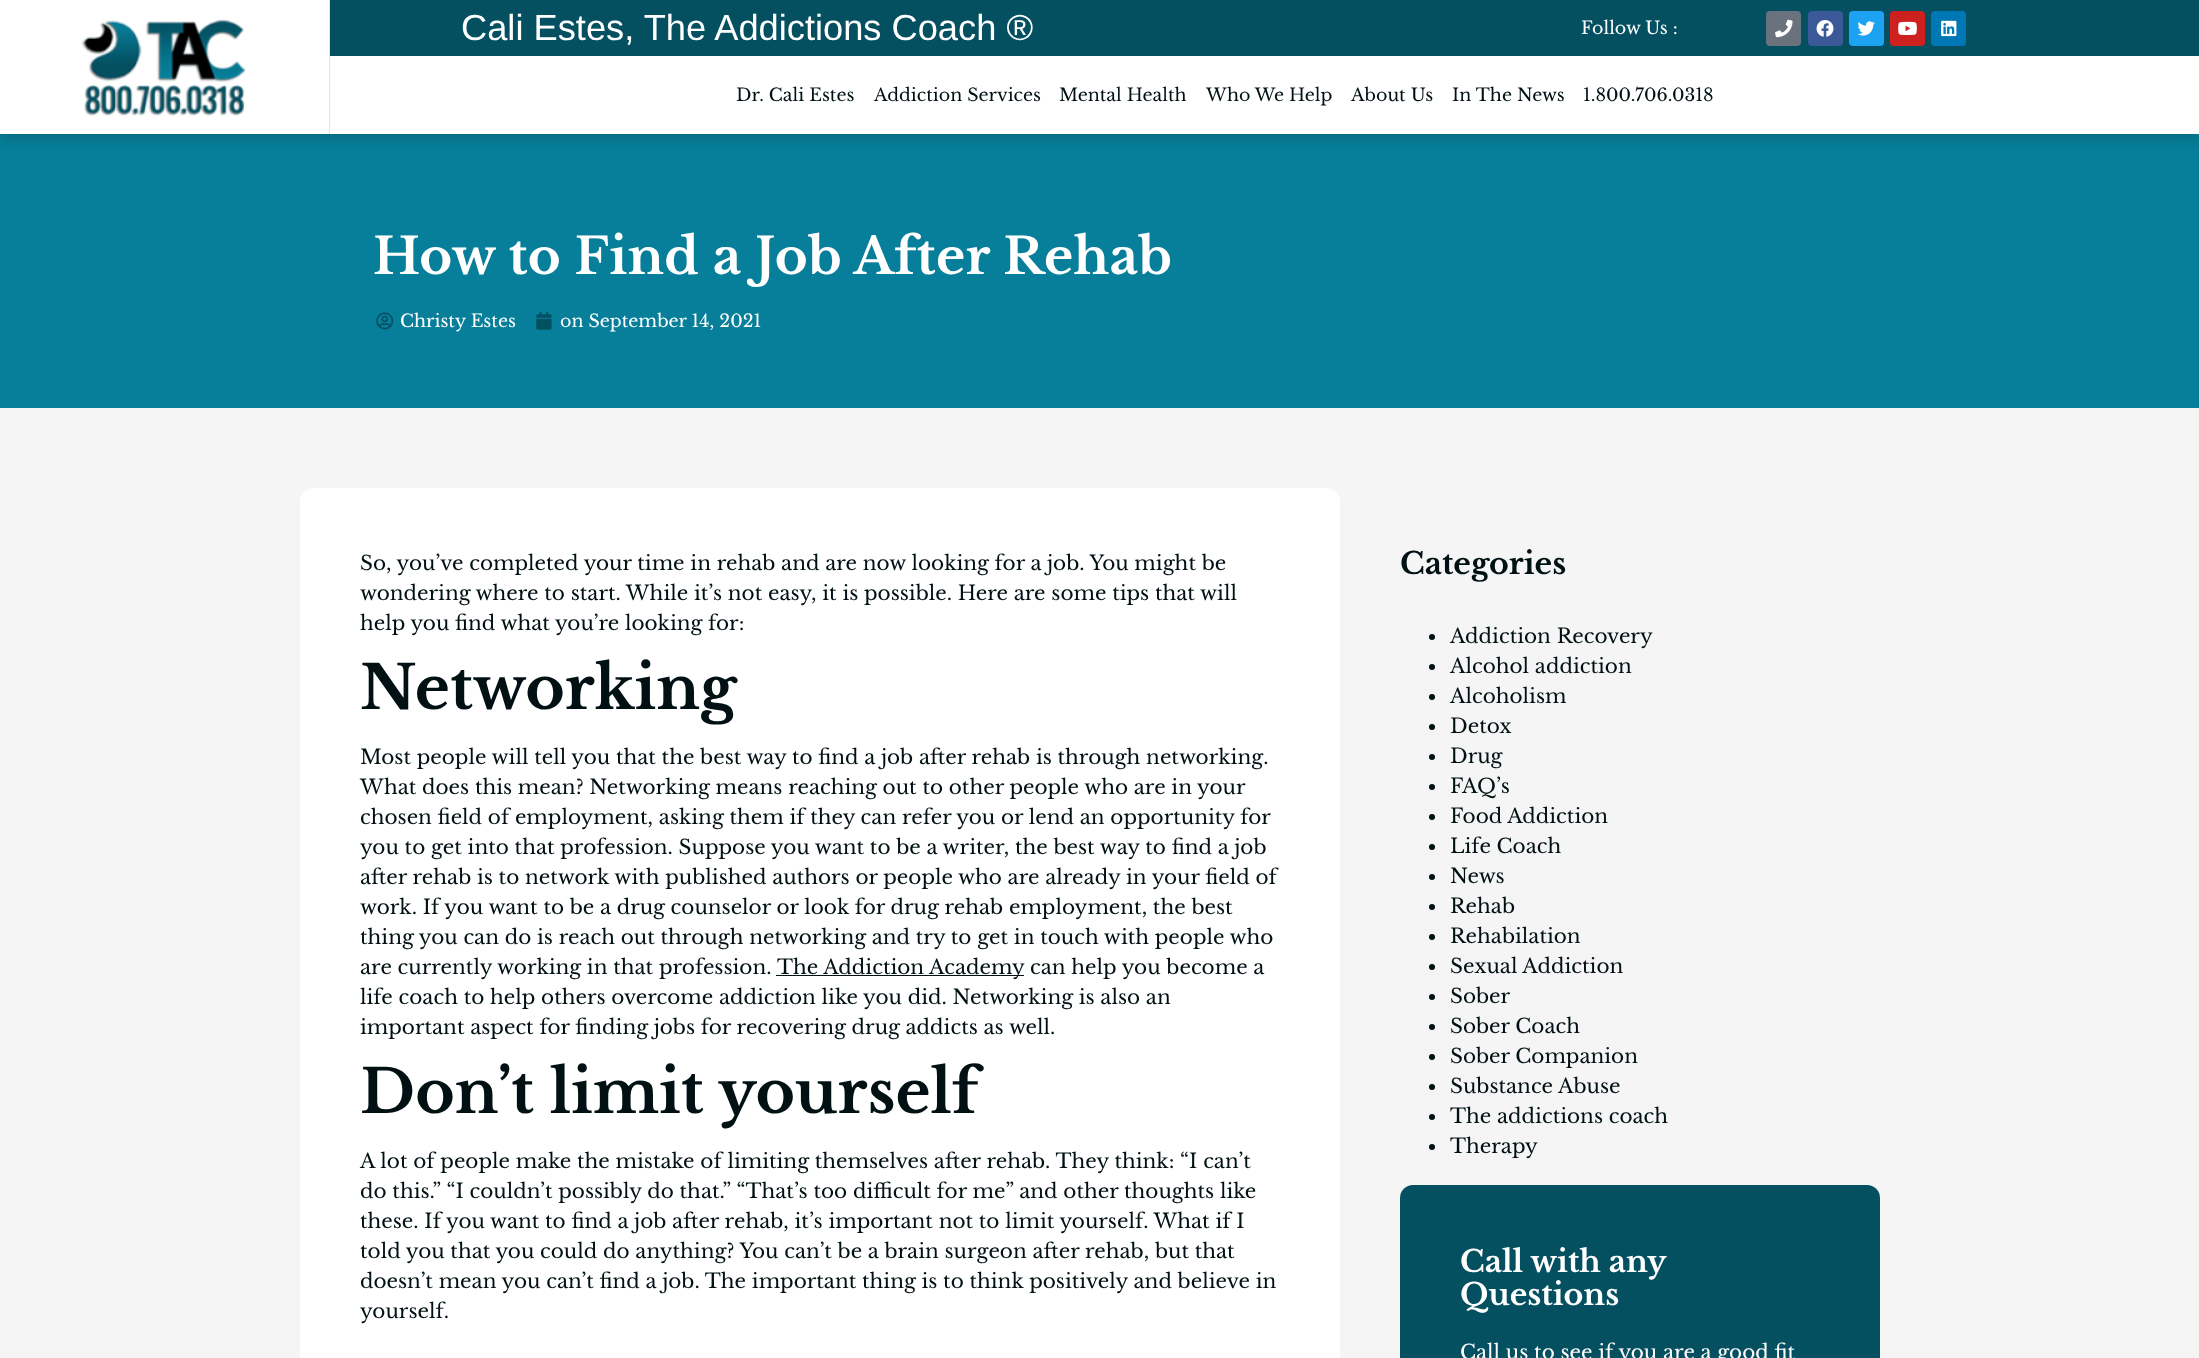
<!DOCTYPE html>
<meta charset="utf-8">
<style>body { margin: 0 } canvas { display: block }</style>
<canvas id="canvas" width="2199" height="1358"></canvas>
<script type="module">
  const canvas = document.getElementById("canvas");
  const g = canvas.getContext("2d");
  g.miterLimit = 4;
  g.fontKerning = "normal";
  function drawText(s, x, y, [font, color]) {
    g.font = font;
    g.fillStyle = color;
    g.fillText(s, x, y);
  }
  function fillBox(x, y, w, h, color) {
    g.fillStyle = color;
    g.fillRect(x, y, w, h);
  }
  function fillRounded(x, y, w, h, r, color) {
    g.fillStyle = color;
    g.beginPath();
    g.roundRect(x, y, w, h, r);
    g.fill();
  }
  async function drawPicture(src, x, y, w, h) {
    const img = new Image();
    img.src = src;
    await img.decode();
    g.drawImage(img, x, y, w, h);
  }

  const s1 = ["36.25px Liberation Sans", "#FFFFFF"];
  const s2 = ["17.5px Libre Baskerville", "#FFFFFF"];
  const s3 = ["17.5px Libre Baskerville", "#011013"];
  const s4 = ["bold 50px Libre Baskerville", "#FFFFFF"];
  const s5 = ["20px Libre Baskerville", "#011013"];
  const s6 = ["bold 60px Libre Baskerville", "#011013"];
  const s7 = ["bold 30px Libre Baskerville", "#011013"];
  const s8 = ["bold 30px Libre Baskerville", "#FFFFFF"];
  const s9 = ["20px Libre Baskerville", "#FFFFFF"];

  fillBox(0, 0, 2199, 1358, "#077F9A");
  g.fillStyle = "rgba(0, 0, 0, 0.15)";
  g.filter = "blur(6px)";
  g.beginPath();
  g.rect(0, 6, 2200, 134);
  g.fill();
  g.filter = "none";
  fillBox(0, 0, 2199, 134, "#FFFFFF");
  fillBox(329, 0, 1, 134, "#E1E3E7");
  await drawPicture("pic1.png", 81, 19, 165, 97);
  fillBox(330, 0, 1869, 56, "#044F60");
  drawText("Cali Estes, The Addictions Coach ®", 461, 40, s1);
  drawText("Follow Us :", 1581, 34, s2);
  fillRounded(1766, 11, 35, 35, 4, "#69727D");
  await drawPicture("pic2.png", 1775, 19, 18, 19);
  fillRounded(1808, 11, 35, 35, 4, "#3B5998");
  await drawPicture("pic3.png", 1816, 20, 18, 17);
  fillRounded(1849, 11, 35, 35, 4, "#1DA1F2");
  await drawPicture("pic4.png", 1857, 21, 18, 15);
  fillRounded(1890, 11, 35, 35, 4, "#CD201F");
  await drawPicture("pic5.png", 1898, 21, 19, 14);
  fillRounded(1931, 11, 35, 35, 4, "#0077B5");
  await drawPicture("pic6.png", 1941, 20, 16, 17);
  drawText("Dr. Cali Estes", 736, 101, s3);
  drawText("Addiction Services", 874, 101, s3);
  drawText("Mental Health", 1059, 101, s3);
  drawText("Who We Help", 1206, 101, s3);
  drawText("About Us", 1351, 101, s3);
  drawText("In The News", 1452, 101, s3);
  drawText("1.800.706.0318", 1583, 101, s3);
  g.letterSpacing = "0.25px";
  drawText("How to Find a Job After Rehab", 373, 274, s4);
  await drawPicture("pic7.png", 376, 312, 18, 18);
  g.letterSpacing = "0px";
  drawText("Christy Estes", 400, 327, s2);
  await drawPicture("pic8.png", 536, 312, 16, 18);
  drawText("on September 14, 2021", 560, 327, s2);
  fillBox(0, 408, 2199, 950, "#F5F5F5");
  fillRounded(300, 488, 1040, 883, 13, "#FFFFFF");
  drawText("So, you’ve completed your time in rehab and are now looking for a job. You might be", 360, 570, s5);
  drawText("wondering where to start. While it’s not easy, it is possible. Here are some tips that will", 360, 600, s5);
  drawText("help you find what you’re looking for:", 360, 630, s5);
  drawText("Networking", 360, 709, s6);
  drawText("Most people will tell you that the best way to find a job after rehab is through networking.", 360, 764, s5);
  drawText("What does this mean? Networking means reaching out to other people who are in your", 360, 794, s5);
  drawText("chosen field of employment, asking them if they can refer you or lend an opportunity for", 360, 824, s5);
  drawText("you to get into that profession. Suppose you want to be a writer, the best way to find a job", 360, 854, s5);
  drawText("after rehab is to network with published authors or people who are already in your field of", 360, 884, s5);
  drawText("work. If you want to be a drug counselor or look for drug rehab employment, the best", 360, 914, s5);
  drawText("thing you can do is reach out through networking and try to get in touch with people who", 360, 944, s5);
  drawText("are currently working in that profession.", 360, 974, s5);
  fillBox(776, 975, 248, 1, "#011013");
  drawText("The Addiction Academy", 777, 974, s5);
  drawText("can help you become a", 1030, 974, s5);
  drawText("life coach to help others overcome addiction like you did. Networking is also an", 360, 1004, s5);
  drawText("important aspect for finding jobs for recovering drug addicts as well.", 360, 1034, s5);
  drawText("Don’t limit yourself", 360, 1113, s6);
  drawText("A lot of people make the mistake of limiting themselves after rehab. They think: “I can’t", 360, 1168, s5);
  drawText("do this.” “I couldn’t possibly do that.” “That’s too difficult for me” and other thoughts like", 360, 1198, s5);
  drawText("these. If you want to find a job after rehab, it’s important not to limit yourself. What if I", 360, 1228, s5);
  drawText("told you that you could do anything? You can’t be a brain surgeon after rehab, but that", 360, 1258, s5);
  drawText("doesn’t mean you can’t find a job. The important thing is to think positively and believe in", 360, 1288, s5);
  drawText("yourself.", 360, 1318, s5);
  drawText("Categories", 1400, 574, s7);
  g.beginPath();
  g.arc(1432, 637, 3, 0, Math.PI * 2);
  g.fill();
  drawText("Addiction Recovery", 1450, 643, s5);
  g.beginPath();
  g.arc(1432, 667, 3, 0, Math.PI * 2);
  g.fill();
  drawText("Alcohol addiction", 1450, 673, s5);
  g.beginPath();
  g.arc(1432, 697, 3, 0, Math.PI * 2);
  g.fill();
  drawText("Alcoholism", 1450, 703, s5);
  g.beginPath();
  g.arc(1432, 727, 3, 0, Math.PI * 2);
  g.fill();
  drawText("Detox", 1450, 733, s5);
  g.beginPath();
  g.arc(1432, 757, 3, 0, Math.PI * 2);
  g.fill();
  drawText("Drug", 1450, 763, s5);
  g.beginPath();
  g.arc(1432, 787, 3, 0, Math.PI * 2);
  g.fill();
  drawText("FAQ’s", 1450, 793, s5);
  g.beginPath();
  g.arc(1432, 817, 3, 0, Math.PI * 2);
  g.fill();
  drawText("Food Addiction", 1450, 823, s5);
  g.beginPath();
  g.arc(1432, 847, 3, 0, Math.PI * 2);
  g.fill();
  drawText("Life Coach", 1450, 853, s5);
  g.beginPath();
  g.arc(1432, 877, 3, 0, Math.PI * 2);
  g.fill();
  drawText("News", 1450, 883, s5);
  g.beginPath();
  g.arc(1432, 907, 3, 0, Math.PI * 2);
  g.fill();
  drawText("Rehab", 1450, 913, s5);
  g.beginPath();
  g.arc(1432, 937, 3, 0, Math.PI * 2);
  g.fill();
  drawText("Rehabilation", 1450, 943, s5);
  g.beginPath();
  g.arc(1432, 967, 3, 0, Math.PI * 2);
  g.fill();
  drawText("Sexual Addiction", 1450, 973, s5);
  g.beginPath();
  g.arc(1432, 997, 3, 0, Math.PI * 2);
  g.fill();
  drawText("Sober", 1450, 1003, s5);
  g.beginPath();
  g.arc(1432, 1027, 3, 0, Math.PI * 2);
  g.fill();
  drawText("Sober Coach", 1450, 1033, s5);
  g.beginPath();
  g.arc(1432, 1057, 3, 0, Math.PI * 2);
  g.fill();
  drawText("Sober Companion", 1450, 1063, s5);
  g.beginPath();
  g.arc(1432, 1087, 3, 0, Math.PI * 2);
  g.fill();
  drawText("Substance Abuse", 1450, 1093, s5);
  g.beginPath();
  g.arc(1432, 1117, 3, 0, Math.PI * 2);
  g.fill();
  drawText("The addictions coach", 1450, 1123, s5);
  g.beginPath();
  g.arc(1432, 1147, 3, 0, Math.PI * 2);
  g.fill();
  drawText("Therapy", 1450, 1153, s5);
  fillRounded(1400, 1185, 480, 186, 13, "#044F60");
  drawText("Call with any", 1460, 1272, s8);
  drawText("Questions", 1460, 1305, s8);
  drawText("Call us to see if you are a good fit", 1460, 1359, s9);
</script>
